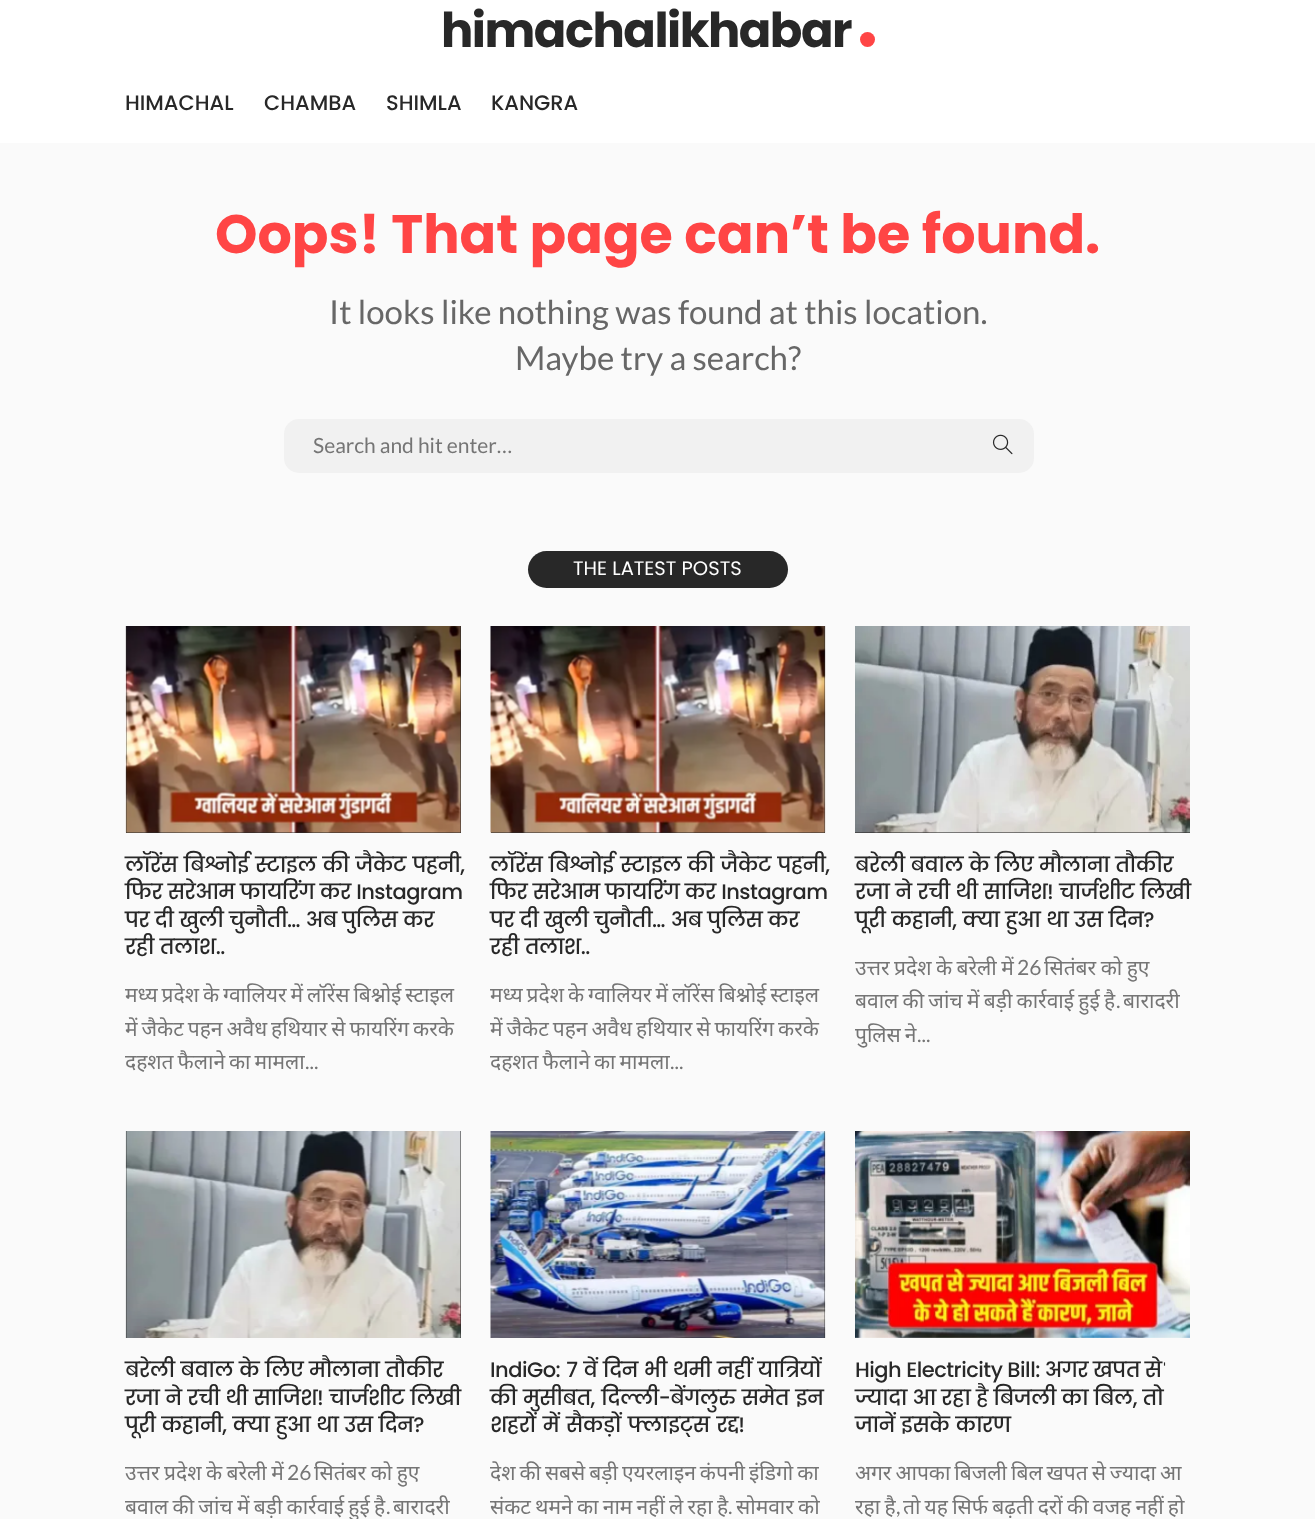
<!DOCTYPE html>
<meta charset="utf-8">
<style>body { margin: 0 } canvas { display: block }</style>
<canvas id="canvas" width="1315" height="1519"></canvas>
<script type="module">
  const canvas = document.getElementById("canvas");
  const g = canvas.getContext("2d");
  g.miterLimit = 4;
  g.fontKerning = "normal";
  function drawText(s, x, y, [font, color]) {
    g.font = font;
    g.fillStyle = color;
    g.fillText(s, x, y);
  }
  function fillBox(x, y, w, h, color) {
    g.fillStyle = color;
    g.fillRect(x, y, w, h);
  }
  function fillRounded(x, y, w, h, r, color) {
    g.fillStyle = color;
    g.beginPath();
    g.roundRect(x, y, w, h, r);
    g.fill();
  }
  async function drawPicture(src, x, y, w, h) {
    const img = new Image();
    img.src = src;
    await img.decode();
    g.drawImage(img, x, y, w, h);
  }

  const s1 = ["bold 48px Poppins", "#282828"];
  const s2 = ["500 21px Poppins", "#282828"];
  const s3 = ["bold 54px Poppins", "#FF4545"];
  const s4 = ["33px Lato", "#676767"];
  const s5 = ["21px Lato", "#757575"];
  const s6 = ["19.5px Poppins", "#FFFFFF"];
  const s7 = ["21px Noto Sans", "#757575"];
  const s8 = ["21px Liberation Serif", "#282828"];

  fillBox(0, 0, 1315, 1519, "#FAFAFA");
  fillBox(0, 0, 1315, 143, "#FFFFFF");
  g.letterSpacing = "-1.5px";
  drawText("himachalikhabar", 441, 47, s1);
  g.fillStyle = "#FF4545";
  g.beginPath();
  g.arc(867.5, 39.5, 7.5, 0, Math.PI * 2);
  g.fill();
  g.letterSpacing = "0px";
  drawText("HIMACHAL", 125, 110, s2);
  drawText("CHAMBA", 264, 110, s2);
  drawText("SHIMLA", 386, 110, s2);
  drawText("KANGRA", 491, 110, s2);
  drawText("Oops! That page can’t be found.", 215, 253, s3);
  drawText("It looks like nothing was found at this location.", 329, 324, s4);
  drawText("Maybe try a search?", 515, 370, s4);
  fillRounded(284, 419, 750, 54, 15, "#F1F1F1");
  drawText("Search and hit enter…", 313, 453, s5);
  await drawPicture("pic1.png", 992, 434, 21, 21);
  fillRounded(528, 551, 260, 37, 18.5, "#282828");
  drawText("THE LATEST POSTS", 573, 575, s6);
  fillBox(126, 626, 335, 207, "#282828");
  await drawPicture("pic2.png", 125, 626, 336, 207);
  g.letterSpacing = "-0.5px";
  g.wordSpacing = "1.5px";
  drawText("लॉरेंस बिश्नोई स्टाइल की जैकेट पहनी,", 125, 872, s2);
  g.wordSpacing = "0.5px";
  drawText("फिर सरेआम फायरिंग कर Instagram", 125, 899, s2);
  g.wordSpacing = "0.75px";
  drawText("पर दी खुली चुनौती… अब पुलिस कर", 125, 927, s2);
  g.wordSpacing = "1px";
  drawText("रही तलाश..", 125, 954, s2);
  g.letterSpacing = "0px";
  g.wordSpacing = "-1.5px";
  drawText("मध्य प्रदेश के ग्वालियर में लॉरेंस बिश्नोई स्टाइल", 125, 1002, s7);
  drawText("में जैकेट पहन अवैध हथियार से फायरिंग करके", 125, 1036, s7);
  drawText("दहशत फैलाने का मामला", 125, 1069, s7);
  g.wordSpacing = "0px";
  drawText("...", 305, 1069, s5);
  fillBox(491, 626, 334, 207, "#282828");
  await drawPicture("pic3.png", 490, 626, 336, 207);
  g.letterSpacing = "-0.5px";
  g.wordSpacing = "1.5px";
  drawText("लॉरेंस बिश्नोई स्टाइल की जैकेट पहनी,", 490, 872, s2);
  g.wordSpacing = "0.5px";
  drawText("फिर सरेआम फायरिंग कर Instagram", 490, 899, s2);
  g.wordSpacing = "0.75px";
  drawText("पर दी खुली चुनौती… अब पुलिस कर", 490, 927, s2);
  g.wordSpacing = "1px";
  drawText("रही तलाश..", 490, 954, s2);
  g.letterSpacing = "0px";
  g.wordSpacing = "-1.5px";
  drawText("मध्य प्रदेश के ग्वालियर में लॉरेंस बिश्नोई स्टाइल", 490, 1002, s7);
  drawText("में जैकेट पहन अवैध हथियार से फायरिंग करके", 490, 1036, s7);
  drawText("दहशत फैलाने का मामला", 490, 1069, s7);
  g.wordSpacing = "0px";
  drawText("...", 670, 1069, s5);
  fillBox(855, 832, 335, 1, "#282828");
  await drawPicture("pic4.png", 855, 626, 335, 207);
  g.letterSpacing = "-0.5px";
  g.wordSpacing = "1px";
  drawText("बरेली बवाल के लिए मौलाना तौकीर", 855, 872, s2);
  drawText("रजा ने रची थी साजिश! चार्जशीट लिखी", 855, 899, s2);
  drawText("पूरी कहानी, क्या हुआ था उस दिन?", 855, 927, s2);
  g.letterSpacing = "0px";
  g.wordSpacing = "-1px";
  drawText("उत्तर प्रदेश के बरेली में", 855, 975, s7);
  g.wordSpacing = "0px";
  drawText("26", 1017, 975, s5);
  g.wordSpacing = "-1px";
  drawText("सितंबर को हुए", 1044, 975, s7);
  g.wordSpacing = "-1.25px";
  drawText("बवाल की जांच में बड़ी कार्रवाई हुई है", 855, 1008, s7);
  g.wordSpacing = "0px";
  drawText(".", 1116, 1008, s5);
  drawText("बारादरी", 1123, 1008, s7);
  g.wordSpacing = "-1.5px";
  drawText("पुलिस ने", 855, 1042, s7);
  g.wordSpacing = "0px";
  drawText("...", 917, 1042, s5);
  fillBox(126, 1131, 335, 207, "#282828");
  await drawPicture("pic5.png", 125, 1131, 336, 207);
  g.letterSpacing = "-0.5px";
  g.wordSpacing = "1px";
  drawText("बरेली बवाल के लिए मौलाना तौकीर", 125, 1377, s2);
  drawText("रजा ने रची थी साजिश! चार्जशीट लिखी", 125, 1405, s2);
  drawText("पूरी कहानी, क्या हुआ था उस दिन?", 125, 1432, s2);
  g.letterSpacing = "0px";
  g.wordSpacing = "-1px";
  drawText("उत्तर प्रदेश के बरेली में", 125, 1480, s7);
  g.wordSpacing = "0px";
  drawText("26", 287, 1480, s5);
  g.wordSpacing = "-1px";
  drawText("सितंबर को हुए", 314, 1480, s7);
  g.wordSpacing = "-1.25px";
  drawText("बवाल की जांच में बड़ी कार्रवाई हुई है", 125, 1514, s7);
  g.wordSpacing = "0px";
  drawText(".", 386, 1514, s5);
  drawText("बारादरी", 393, 1514, s7);
  fillBox(824, 1131, 1, 207, "#282828");
  await drawPicture("pic6.png", 490, 1131, 336, 207);
  g.letterSpacing = "-0.5px";
  g.wordSpacing = "1px";
  drawText("IndiGo: 7 वें दिन भी थमी नहीं यात्रियों", 490, 1377, s2);
  g.wordSpacing = "1.5px";
  drawText("की मुसीबत, दिल्ली-बेंगलुरु समेत इन", 490, 1405, s2);
  g.wordSpacing = "2px";
  drawText("शहरों में सैकड़ों फ्लाइट्स रद्द!", 490, 1432, s2);
  g.letterSpacing = "0px";
  g.wordSpacing = "-1.5px";
  drawText("देश की सबसे बड़ी एयरलाइन कंपनी इंडिगो का", 490, 1480, s7);
  g.wordSpacing = "-1.25px";
  drawText("संकट थमने का नाम नहीं ले रहा है", 490, 1514, s7);
  g.wordSpacing = "0px";
  drawText(".", 728, 1514, s5);
  g.wordSpacing = "-1.25px";
  drawText("सोमवार को", 736, 1514, s7);
  await drawPicture("pic7.png", 855, 1131, 335, 207);
  g.letterSpacing = "-0.5px";
  g.wordSpacing = "0px";
  drawText("High Electricity Bill: अगर खपत से", 855, 1377, s2);
  drawText("ˈ", 1161, 1377, s8);
  g.wordSpacing = "0.75px";
  drawText("ज्यादा आ रहा है बिजली का बिल, तो", 855, 1405, s2);
  g.wordSpacing = "1px";
  drawText("जानें इसके कारण", 855, 1432, s2);
  g.letterSpacing = "0px";
  g.wordSpacing = "-1.5px";
  drawText("अगर आपका बिजली बिल खपत से ज्यादा आ", 855, 1480, s7);
  g.wordSpacing = "-1.25px";
  drawText("रहा है", 855, 1514, s7);
  g.wordSpacing = "0px";
  drawText(",", 896, 1514, s5);
  g.wordSpacing = "-1.25px";
  drawText("तो यह सिर्फ बढ़ती दरों की वजह नहीं हो", 903, 1514, s7);
</script>
